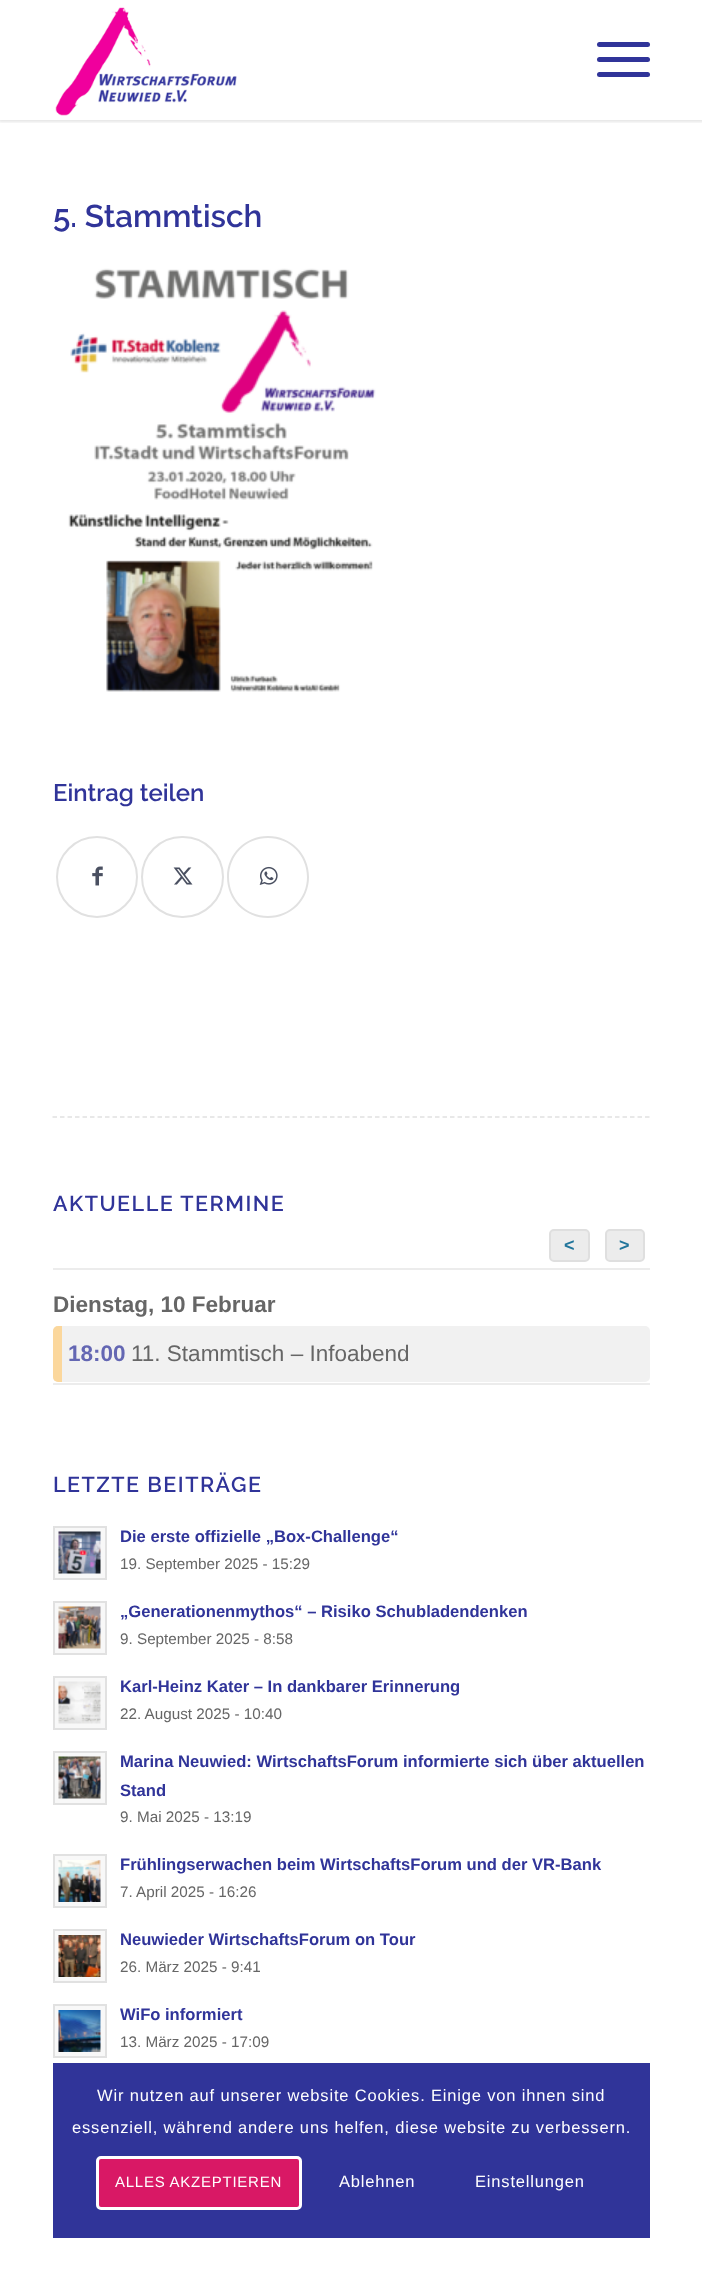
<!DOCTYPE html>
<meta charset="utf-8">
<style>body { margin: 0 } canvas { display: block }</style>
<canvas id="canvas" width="702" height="2282"></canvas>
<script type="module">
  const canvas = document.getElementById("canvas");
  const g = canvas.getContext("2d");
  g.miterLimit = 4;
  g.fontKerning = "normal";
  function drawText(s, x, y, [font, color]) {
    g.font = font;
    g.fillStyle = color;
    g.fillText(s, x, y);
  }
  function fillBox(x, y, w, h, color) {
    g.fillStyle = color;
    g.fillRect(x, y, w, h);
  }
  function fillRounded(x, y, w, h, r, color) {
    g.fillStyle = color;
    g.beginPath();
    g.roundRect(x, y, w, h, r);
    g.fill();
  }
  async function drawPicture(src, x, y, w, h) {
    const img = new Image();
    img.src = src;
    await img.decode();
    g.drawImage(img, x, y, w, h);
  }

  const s1 = ["600 31.5px Raleway", "#303499"];
  const s2 = ["600 24px Raleway", "#303499"];
  const s3 = ["600 21.5px Raleway", "#303499"];
  const s4 = ["bold 18px Liberation Sans", "#21759B"];
  const s5 = ["bold 22.5px Liberation Sans", "#666666"];
  const s6 = ["bold 22.5px Liberation Sans", "#6467B3"];
  const s7 = ["22.5px Liberation Sans", "#666666"];
  const s8 = ["bold 16.6px Liberation Sans", "#303499"];
  const s9 = ["15.25px Liberation Sans", "#666666"];
  const s10 = ["16.5px Liberation Sans", "#FFFFFF"];
  const s11 = ["15px Liberation Sans", "#FFFFFF"];

  fillBox(0, 0, 702, 2282, "#FFFFFF");
  g.save();
  g.beginPath();
  g.rect(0, 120, 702, 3);
  g.clip();
  g.fillStyle = "rgba(0, 0, 0, 0.1)";
  g.filter = "blur(1.5px)";
  g.beginPath();
  g.rect(-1, -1, 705, 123);
  g.fill();
  g.filter = "none";
  g.restore();
  await drawPicture("pic1.png", 55, 7, 182, 109);
  fillRounded(597, 57, 53, 5, 2.5, "#303499");
  fillRounded(597, 42, 53, 5, 2.5, "#303499");
  fillRounded(597, 72, 53, 5, 2.5, "#303499");
  drawText("5. Stammtisch", 53, 227, s1);
  await drawPicture("pic2.png", 68, 268, 308, 424);
  drawText("Eintrag teilen", 53, 801, s2);
  g.beginPath();
  g.arc(97, 877, 40, 0, Math.PI * 2);
  g.strokeStyle = "#E1E1E1";
  g.lineWidth = 2;
  g.stroke();
  await drawPicture("pic3.png", 92, 866, 11, 20);
  g.beginPath();
  g.roundRect(142, 837, 81, 80, 40);
  g.stroke();
  await drawPicture("pic4.png", 173, 867, 20, 18);
  g.fillStyle = "#E1E1E1";
  g.beginPath();
  g.moveTo(268, 836);
  g.bezierCurveTo(291, 836, 309, 854, 309, 877);
  g.bezierCurveTo(309, 900, 291, 918, 268, 918);
  g.bezierCurveTo(245, 918, 227, 900, 227, 877);
  g.bezierCurveTo(227, 854, 245, 836, 268, 836);
  g.closePath();
  g.moveTo(268, 838);
  g.bezierCurveTo(246, 838, 229, 855, 229, 877);
  g.bezierCurveTo(229, 899, 246, 916, 268, 916);
  g.bezierCurveTo(290, 916, 307, 899, 307, 877);
  g.bezierCurveTo(307, 855, 290, 838, 268, 838);
  g.closePath();
  g.fill("evenodd");
  await drawPicture("pic5.png", 259, 866, 19, 19);
  g.beginPath();
  g.moveTo(52.5, 1117);
  g.lineTo(649.5, 1117);
  g.lineWidth = 1.5;
  g.setLineDash([4.5, 3]);
  g.stroke();
  g.letterSpacing = "1.5px";
  drawText("AKTUELLE TERMINE", 53, 1211, s3);
  g.fillStyle = "#ECECEC";
  g.beginPath();
  g.roundRect(550, 1230, 39, 31, 4);
  g.fill();
  g.strokeStyle = "#DFDFDF";
  g.lineWidth = 2;
  g.setLineDash([]);
  g.stroke();
  g.letterSpacing = "0px";
  drawText("<", 564, 1251, s4);
  g.fillStyle = "#ECECEC";
  g.beginPath();
  g.roundRect(606, 1230, 38, 31, 4);
  g.fill();
  g.stroke();
  drawText(">", 619, 1251, s4);
  fillBox(53, 1383, 597, 2, "#ECECEC");
  fillBox(53, 1268, 597, 2, "#ECECEC");
  drawText("Dienstag, 10 Februar", 53, 1312, s5);
  fillRounded(53, 1326, 597, 56, 5, "#F1F1F1");
  g.fillStyle = "#FBD79C";
  g.beginPath();
  g.roundRect(53, 1326, 9, 56, [5, 0, 0, 5]);
  g.fill();
  drawText("18:00", 68, 1361, s6);
  drawText("11. Stammtisch – Infoabend", 131, 1361, s7);
  g.letterSpacing = "1.5px";
  drawText("LETZTE BEITRÄGE", 53, 1492, s3);
  g.fillStyle = "#F8F8F8";
  g.beginPath();
  g.rect(54, 1527, 52, 52);
  g.fill();
  g.strokeStyle = "#E1E1E1";
  g.stroke();
  await drawPicture("pic6.png", 58, 1531, 43, 43);
  g.letterSpacing = "0px";
  drawText("Die erste offizielle „Box-Challenge“", 120, 1542, s8);
  drawText("19. September 2025 - 15:29", 120, 1569, s9);
  g.fillStyle = "#F8F8F8";
  g.beginPath();
  g.rect(54, 1602, 52, 52);
  g.fill();
  g.stroke();
  await drawPicture("pic7.png", 58, 1606, 43, 43);
  drawText("„Generationenmythos“ – Risiko Schubladendenken", 120, 1617, s8);
  drawText("9. September 2025 - 8:58", 120, 1644, s9);
  g.fillStyle = "#F8F8F8";
  g.beginPath();
  g.rect(54, 1677, 52, 52);
  g.fill();
  g.stroke();
  await drawPicture("pic8.png", 58, 1681, 43, 43);
  drawText("Karl-Heinz Kater – In dankbarer Erinnerung", 120, 1692, s8);
  drawText("22. August 2025 - 10:40", 120, 1719, s9);
  g.fillStyle = "#F8F8F8";
  g.beginPath();
  g.rect(54, 1752, 52, 52);
  g.fill();
  g.stroke();
  await drawPicture("pic9.png", 58, 1756, 43, 43);
  drawText("Marina Neuwied: WirtschaftsForum informierte sich über aktuellen", 120, 1767, s8);
  drawText("Stand", 120, 1796, s8);
  drawText("9. Mai 2025 - 13:19", 120, 1822, s9);
  g.fillStyle = "#F8F8F8";
  g.beginPath();
  g.rect(54, 1855, 52, 52);
  g.fill();
  g.stroke();
  await drawPicture("pic10.png", 58, 1860, 43, 42);
  drawText("Frühlingserwachen beim WirtschaftsForum und der VR-Bank", 120, 1870, s8);
  drawText("7. April 2025 - 16:26", 120, 1897, s9);
  g.fillStyle = "#F8F8F8";
  g.beginPath();
  g.rect(54, 1930, 52, 52);
  g.fill();
  g.stroke();
  await drawPicture("pic11.png", 58, 1935, 43, 42);
  drawText("Neuwieder WirtschaftsForum on Tour", 120, 1945, s8);
  drawText("26. März 2025 - 9:41", 120, 1972, s9);
  g.fillStyle = "#F8F8F8";
  g.beginPath();
  g.rect(54, 2005, 52, 52);
  g.fill();
  g.stroke();
  await drawPicture("pic12.png", 58, 2010, 43, 42);
  drawText("WiFo informiert", 120, 2020, s8);
  drawText("13. März 2025 - 17:09", 120, 2047, s9);
  fillBox(53, 2063, 597, 175, "#303499");
  g.letterSpacing = "0.83px";
  drawText("Wir nutzen auf unserer website Cookies. Einige von ihnen sind", 97, 2101, s10);
  drawText("essenziell, während andere uns helfen, diese website zu verbessern.", 72, 2133, s10);
  g.fillStyle = "#D91865";
  g.beginPath();
  g.roundRect(97.5, 2157.5, 203, 51, 3.5);
  g.fill();
  g.strokeStyle = "#FFFFFF";
  g.lineWidth = 3;
  g.stroke();
  g.letterSpacing = "0.75px";
  drawText("ALLES AKZEPTIEREN", 115, 2187, s11);
  g.letterSpacing = "0.83px";
  drawText("Ablehnen", 339, 2187, s10);
  drawText("Einstellungen", 475, 2187, s10);
</script>
